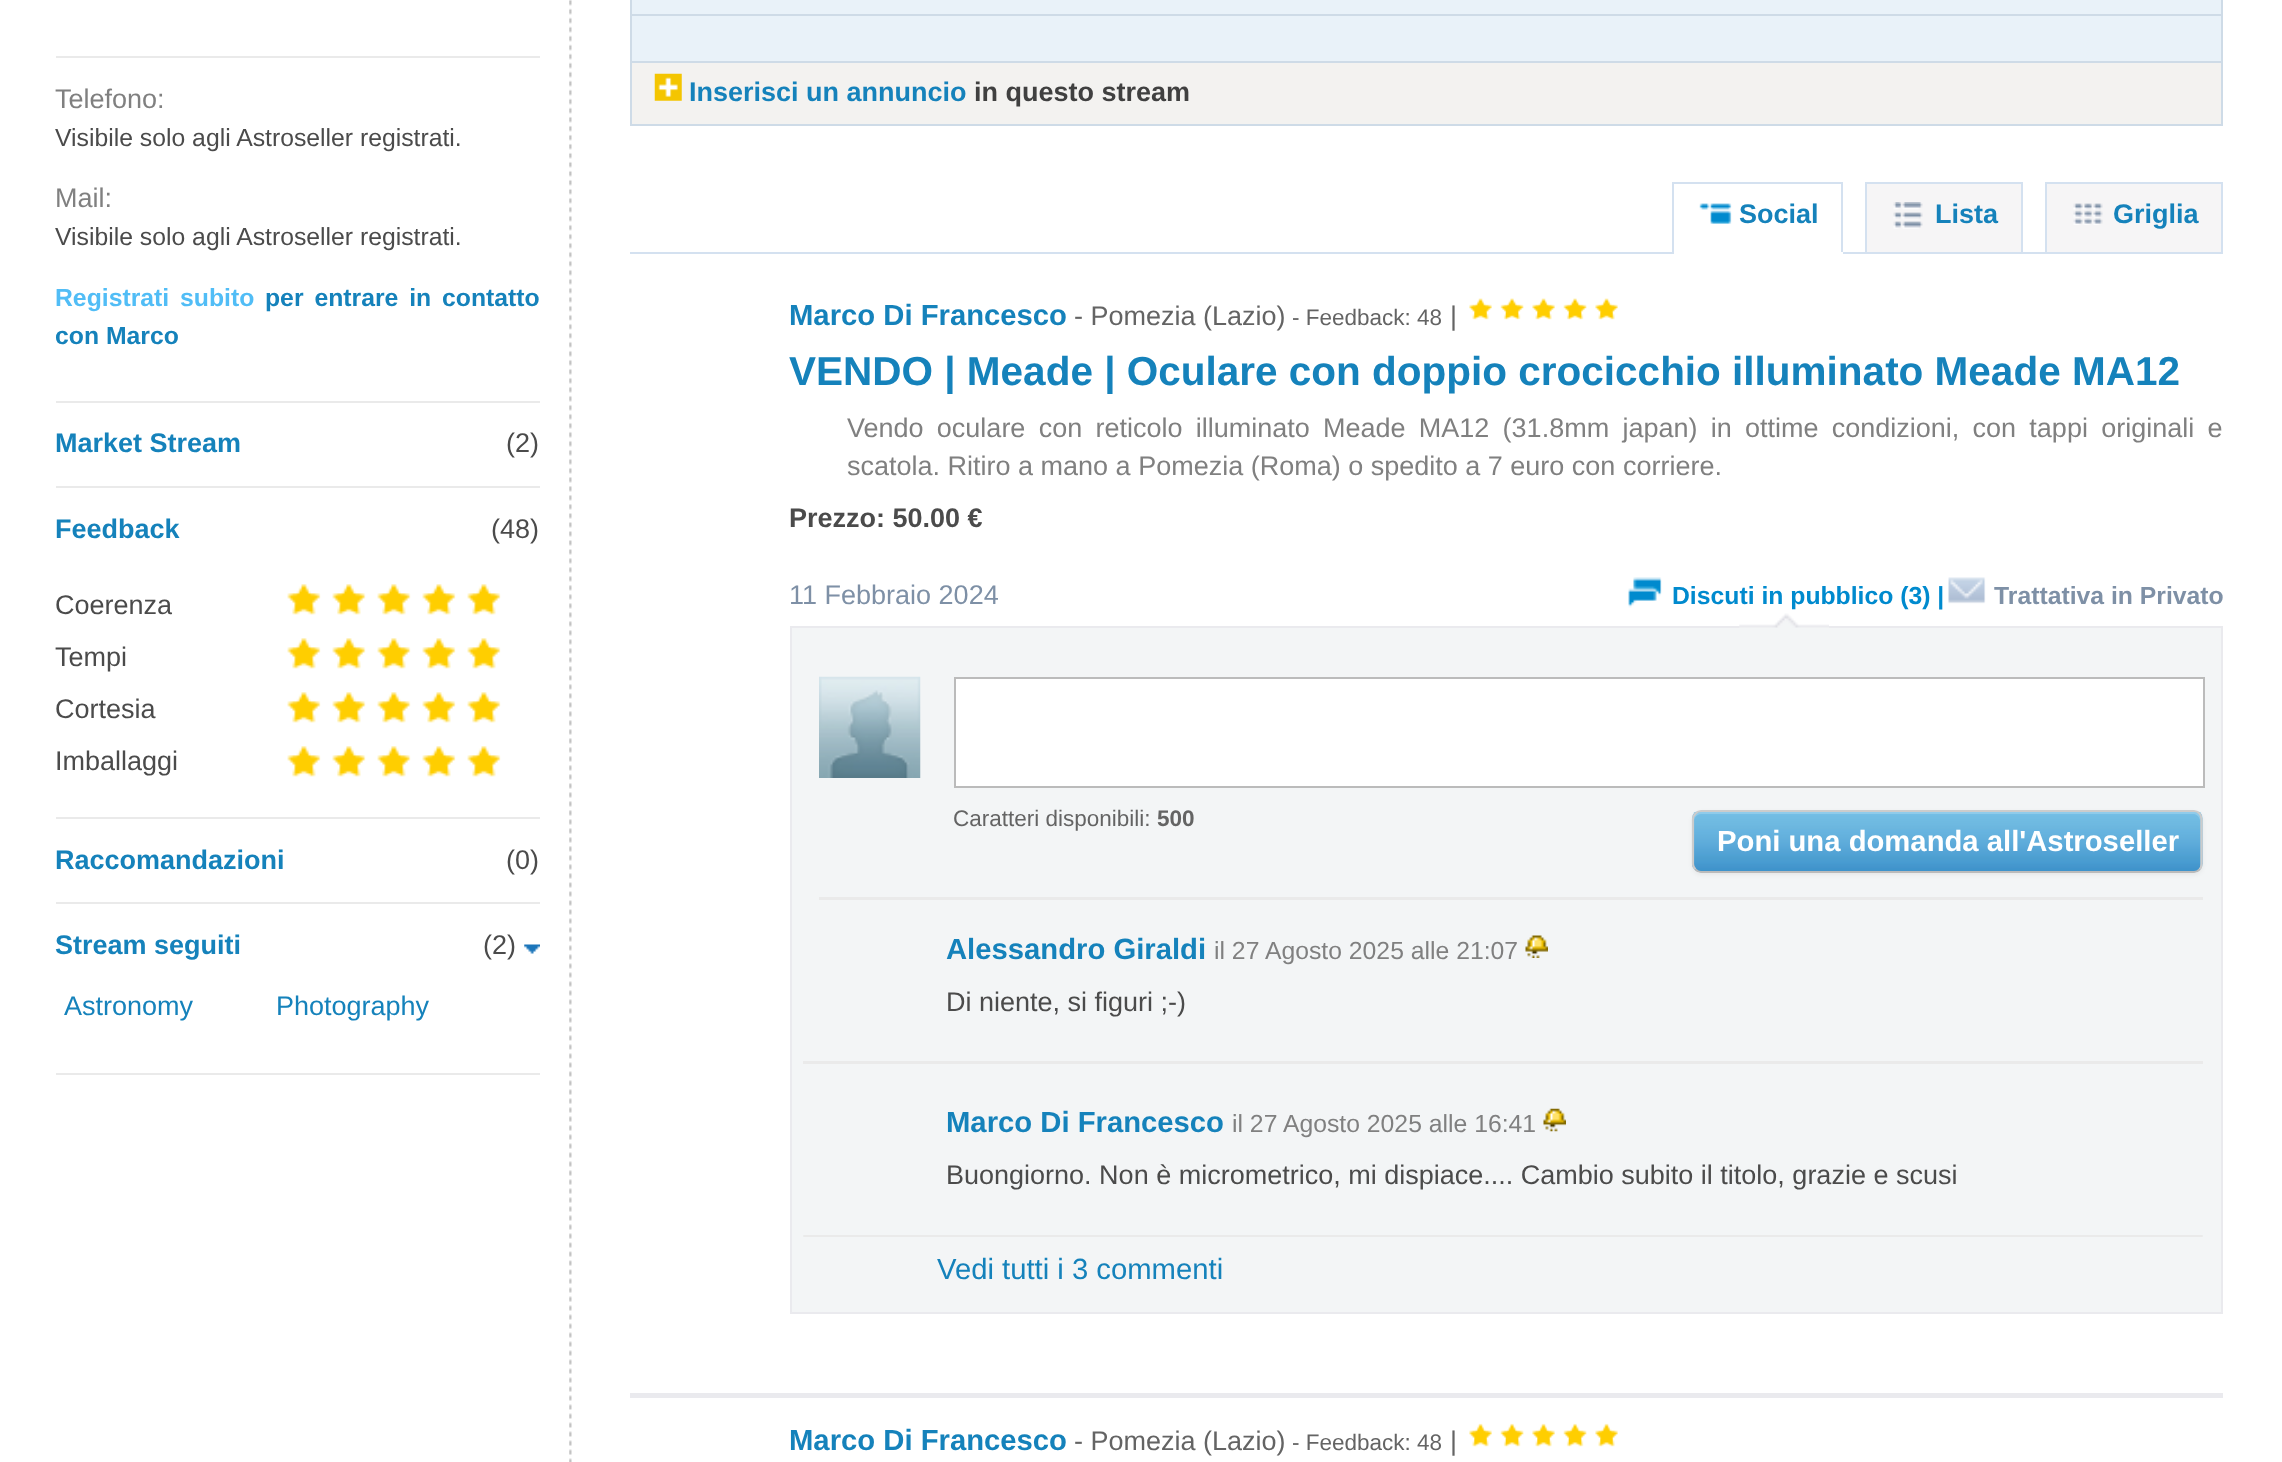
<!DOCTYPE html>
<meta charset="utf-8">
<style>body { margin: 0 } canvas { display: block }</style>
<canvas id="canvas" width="2282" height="1462"></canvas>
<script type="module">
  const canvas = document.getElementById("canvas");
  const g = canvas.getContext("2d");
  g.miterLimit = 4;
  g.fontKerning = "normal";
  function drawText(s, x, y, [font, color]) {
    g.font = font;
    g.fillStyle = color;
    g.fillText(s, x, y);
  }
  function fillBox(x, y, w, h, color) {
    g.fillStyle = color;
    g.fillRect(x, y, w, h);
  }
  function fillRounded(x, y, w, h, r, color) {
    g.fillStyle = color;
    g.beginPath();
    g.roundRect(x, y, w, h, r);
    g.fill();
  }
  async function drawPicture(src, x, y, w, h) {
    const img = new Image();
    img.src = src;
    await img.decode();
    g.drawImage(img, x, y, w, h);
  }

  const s1 = ["27px Liberation Sans", "#808080"];
  const s2 = ["24.75px Liberation Sans", "#4B4B4B"];
  const s3 = ["bold 24.75px Liberation Sans", "#51BDF6"];
  const s4 = ["bold 24.75px Liberation Sans", "#1582BB"];
  const s5 = ["bold 27px Liberation Sans", "#1582BB"];
  const s6 = ["27px Liberation Sans", "#4B4B4B"];
  const s7 = ["27px Liberation Sans", "#1582BB"];
  const s8 = ["bold 27px Liberation Sans", "#404040"];
  const s9 = ["bold 29.25px Liberation Sans", "#1582BB"];
  const s10 = ["27px Liberation Sans", "#646464"];
  const s11 = ["22.5px Liberation Sans", "#646464"];
  const s12 = ["bold 40.5px Liberation Sans", "#1582BB"];
  const s13 = ["bold 27px Liberation Sans", "#4B4B4B"];
  const s14 = ["27px Liberation Sans", "#7E90A6"];
  const s15 = ["bold 24.75px Liberation Sans", "#008ACE"];
  const s16 = ["bold 24.75px Liberation Sans", "#7E90A6"];
  const s17 = ["bold 22.5px Liberation Sans", "#646464"];
  const s18 = ["bold 29.25px Liberation Sans", "#FFFFFF"];
  const s19 = ["24.75px Liberation Sans", "#808080"];
  const s20 = ["29.25px Liberation Sans", "#1582BB"];

  fillBox(0, 0, 2282, 1462, "#FFFFFF");
  fillBox(56, 56, 484, 2, "#EAEAEA");
  drawText("Telefono:", 55, 108, s1);
  drawText("Visibile solo agli Astroseller registrati.", 55, 146, s2);
  drawText("Mail:", 55, 207, s1);
  drawText("Visibile solo agli Astroseller registrati.", 55, 245, s2);
  g.wordSpacing = "4px";
  drawText("Registrati subito", 55, 306, s3);
  drawText("per entrare in contatto", 265, 306, s4);
  g.wordSpacing = "0px";
  drawText("con Marco", 55, 344, s4);
  fillBox(56, 401, 484, 2, "#EAEAEA");
  drawText("Market Stream", 55, 452, s5);
  drawText("(2)", 506, 452, s6);
  fillBox(56, 486, 484, 2, "#EAEAEA");
  drawText("Feedback", 55, 538, s5);
  drawText("(48)", 491, 538, s6);
  drawText("Coerenza", 55, 614, s6);
  await drawPicture("pic1.png", 287, 584, 34, 31);
  await drawPicture("pic2.png", 332, 584, 34, 31);
  await drawPicture("pic2.png", 377, 584, 34, 31);
  await drawPicture("pic1.png", 422, 584, 34, 31);
  await drawPicture("pic1.png", 467, 584, 34, 31);
  await drawPicture("pic1.png", 287, 638, 34, 31);
  await drawPicture("pic2.png", 332, 638, 34, 31);
  await drawPicture("pic2.png", 377, 638, 34, 31);
  await drawPicture("pic1.png", 422, 638, 34, 31);
  await drawPicture("pic1.png", 467, 638, 34, 31);
  await drawPicture("pic1.png", 287, 692, 34, 31);
  await drawPicture("pic2.png", 332, 692, 34, 31);
  await drawPicture("pic2.png", 377, 692, 34, 31);
  await drawPicture("pic1.png", 422, 692, 34, 31);
  await drawPicture("pic1.png", 467, 692, 34, 31);
  await drawPicture("pic1.png", 287, 746, 34, 31);
  await drawPicture("pic2.png", 332, 746, 34, 31);
  await drawPicture("pic2.png", 377, 746, 34, 31);
  await drawPicture("pic1.png", 422, 746, 34, 31);
  await drawPicture("pic1.png", 467, 746, 34, 31);
  drawText("Tempi", 55, 666, s6);
  drawText("Cortesia", 55, 718, s6);
  drawText("Imballaggi", 55, 770, s6);
  fillBox(56, 817, 484, 2, "#EAEAEA");
  drawText("Raccomandazioni", 55, 869, s5);
  drawText("(0)", 506, 869, s6);
  fillBox(56, 902, 484, 2, "#EAEAEA");
  drawText("Stream seguiti", 55, 954, s5);
  drawText("(2)", 483, 954, s6);
  await drawPicture("pic3.png", 524, 944, 16, 10);
  drawText("Astronomy", 64, 1015, s7);
  drawText("Photography", 276, 1015, s7);
  fillBox(56, 1073, 484, 2, "#EAEAEA");
  await drawPicture("pic4.png", 569, 0, 3, 1462);
  fillBox(632, 0, 1589, 14, "#E9F2F9");
  fillBox(632, 14, 1589, 2, "#CEDBE7");
  fillBox(2221, 0, 2, 126, "#CEDBE7");
  fillBox(630, 0, 2, 126, "#CEDBE7");
  fillBox(632, 16, 1589, 45, "#E9F2F9");
  fillBox(632, 61, 1589, 2, "#CEDBE7");
  fillBox(632, 63, 1589, 61, "#F3F2F0");
  fillBox(632, 124, 1589, 2, "#CEDBE7");
  await drawPicture("pic5.png", 654, 73, 28, 28);
  drawText("Inserisci un annuncio", 689, 101, s5);
  drawText("in questo stream", 974, 101, s8);
  fillBox(1672, 182, 171, 2, "#D4E1F0");
  fillBox(630, 252, 1415, 2, "#D4E1F0");
  fillBox(1841, 182, 2, 72, "#D4E1F0");
  fillBox(1672, 252, 171, 2, "#FFFFFF");
  fillBox(1672, 182, 2, 72, "#D4E1F0");
  await drawPicture("pic6.png", 1699, 203, 33, 21);
  drawText("Social", 1739, 223, s5);
  g.fillStyle = "#F6F5F6";
  g.beginPath();
  g.rect(1866, 183, 156, 70);
  g.fill();
  g.strokeStyle = "#D4E1F0";
  g.lineWidth = 2;
  g.stroke();
  await drawPicture("pic7.png", 1893, 202, 30, 27);
  drawText("Lista", 1935, 223, s5);
  g.fillStyle = "#F6F5F6";
  g.beginPath();
  g.rect(2046, 183, 176, 70);
  g.fill();
  g.stroke();
  await drawPicture("pic8.png", 2073, 203, 30, 22);
  drawText("Griglia", 2113, 223, s5);
  drawText("Marco Di Francesco", 789, 325, s9);
  drawText("- Pomezia (Lazio)", 1074, 325, s10);
  drawText("- Feedback: 48", 1292, 325, s11);
  drawText("|", 1450, 325, s10);
  await drawPicture("pic9.png", 1469, 298, 23, 22);
  await drawPicture("pic10.png", 1500, 298, 24, 22);
  await drawPicture("pic9.png", 1532, 298, 23, 22);
  await drawPicture("pic10.png", 1563, 298, 24, 22);
  await drawPicture("pic9.png", 1595, 298, 23, 22);
  drawText("VENDO | Meade | Oculare con doppio crocicchio illuminato Meade MA12", 789, 385, s12);
  g.wordSpacing = "5.75px";
  drawText("Vendo oculare con reticolo illuminato Meade MA12 (31.8mm japan) in ottime condizioni, con tappi originali e", 847, 437, s1);
  g.wordSpacing = "0px";
  drawText("scatola. Ritiro a mano a Pomezia (Roma) o spedito a 7 euro con corriere.", 847, 475, s1);
  drawText("Prezzo: 50.00 €", 789, 527, s13);
  drawText("11 Febbraio 2024", 789, 604, s14);
  g.fillStyle = "#F3F5F6";
  g.beginPath();
  g.rect(791, 627, 1431, 686);
  g.fill();
  g.strokeStyle = "#EAEAEE";
  g.stroke();
  await drawPicture("pic11.png", 1739, 613, 90, 15);
  await drawPicture("pic12.png", 1628, 577, 34, 31);
  drawText("Discuti in pubblico (3) |", 1672, 604, s15);
  await drawPicture("pic13.png", 1948, 577, 38, 27);
  drawText("Trattativa in Privato", 1994, 604, s16);
  await drawPicture("pic14.png", 819, 676, 102, 102);
  g.fillStyle = "#FFFFFF";
  g.beginPath();
  g.rect(955, 678, 1249, 109);
  g.fill();
  g.strokeStyle = "#BBBBBB";
  g.stroke();
  drawText("Caratteri disponibili:", 953, 826, s11);
  drawText("500", 1157, 826, s17);
  g.fillStyle = "rgba(0, 0, 0, 0.05)";
  g.filter = "blur(2px)";
  g.beginPath();
  g.roundRect(1692, 812, 511, 63, 9);
  g.fill();
  g.filter = "none";
  fillRounded(1692, 810, 511, 63, 9, "#FAFAFA");
  await drawPicture("pic15.png", 1692, 811, 511, 62);
  g.fillStyle = "rgba(255, 255, 255, 0.2)";
  g.beginPath();
  g.moveTo(1701, 814);
  g.lineTo(2194, 814);
  g.bezierCurveTo(2197, 814, 2200, 818, 2200, 821);
  g.lineTo(2200, 868);
  g.bezierCurveTo(2201, 867, 2201, 865, 2201, 864);
  g.lineTo(2201, 819);
  g.bezierCurveTo(2201, 815, 2198, 812, 2194, 812);
  g.lineTo(1701, 812);
  g.bezierCurveTo(1697, 812, 1694, 815, 1694, 819);
  g.lineTo(1694, 821);
  g.bezierCurveTo(1694, 818, 1697, 814, 1701, 814);
  g.closePath();
  g.fill();
  g.beginPath();
  g.moveTo(2199.5, 869.5);
  g.bezierCurveTo(2198, 871, 2196, 872, 2194, 872);
  g.lineTo(1701, 872);
  g.bezierCurveTo(1699, 872, 1697, 871, 1695.5, 869.5);
  g.lineWidth = 2.2;
  g.stroke();
  g.beginPath();
  g.moveTo(1695.5, 869.5);
  g.bezierCurveTo(1694, 868, 1693, 866, 1693, 864);
  g.lineTo(1693, 819);
  g.bezierCurveTo(1693, 817, 1694, 815, 1695.5, 813.5);
  g.bezierCurveTo(1697, 812, 1699, 811, 1701, 811);
  g.lineTo(2194, 811);
  g.bezierCurveTo(2196, 811, 2198, 812, 2199.5, 813.5);
  g.bezierCurveTo(2201, 815, 2201.5, 817, 2201.5, 819);
  g.lineTo(2201.5, 864);
  g.bezierCurveTo(2201.5, 866, 2201, 868, 2199.5, 869.5);
  g.strokeStyle = "#CCCCCC";
  g.stroke();
  drawText("Poni una domanda all'Astroseller", 1717, 851, s18);
  fillBox(819, 897, 1384, 3, "#EAEAEA");
  drawText("Alessandro Giraldi", 946, 959, s9);
  drawText("il 27 Agosto 2025 alle 21:07", 1214, 959, s19);
  await drawPicture("pic16.png", 1525, 935, 23, 23);
  drawText("Di niente, si figuri ;-)", 946, 1011, s6);
  fillBox(803, 1061, 1400, 3, "#EAEAEA");
  drawText("Marco Di Francesco", 946, 1132, s9);
  drawText("il 27 Agosto 2025 alle 16:41", 1232, 1132, s19);
  await drawPicture("pic17.png", 1543, 1108, 23, 24);
  drawText("Buongiorno. Non è micrometrico, mi dispiace.... Cambio subito il titolo, grazie e scusi", 946, 1184, s6);
  await drawPicture("pic18.png", 803, 1235, 1400, 2);
  drawText("Vedi tutti i 3 commenti", 937, 1279, s20);
  fillBox(630, 1393, 1593, 5, "#EAEAEE");
  drawText("Marco Di Francesco", 789, 1450, s9);
  drawText("- Pomezia (Lazio)", 1074, 1450, s10);
  drawText("- Feedback: 48", 1292, 1450, s11);
  drawText("|", 1450, 1450, s10);
  await drawPicture("pic19.png", 1469, 1423, 23, 24);
  await drawPicture("pic20.png", 1500, 1423, 24, 24);
  await drawPicture("pic19.png", 1532, 1423, 23, 24);
  await drawPicture("pic20.png", 1563, 1423, 24, 24);
  await drawPicture("pic19.png", 1595, 1423, 23, 24);
</script>
